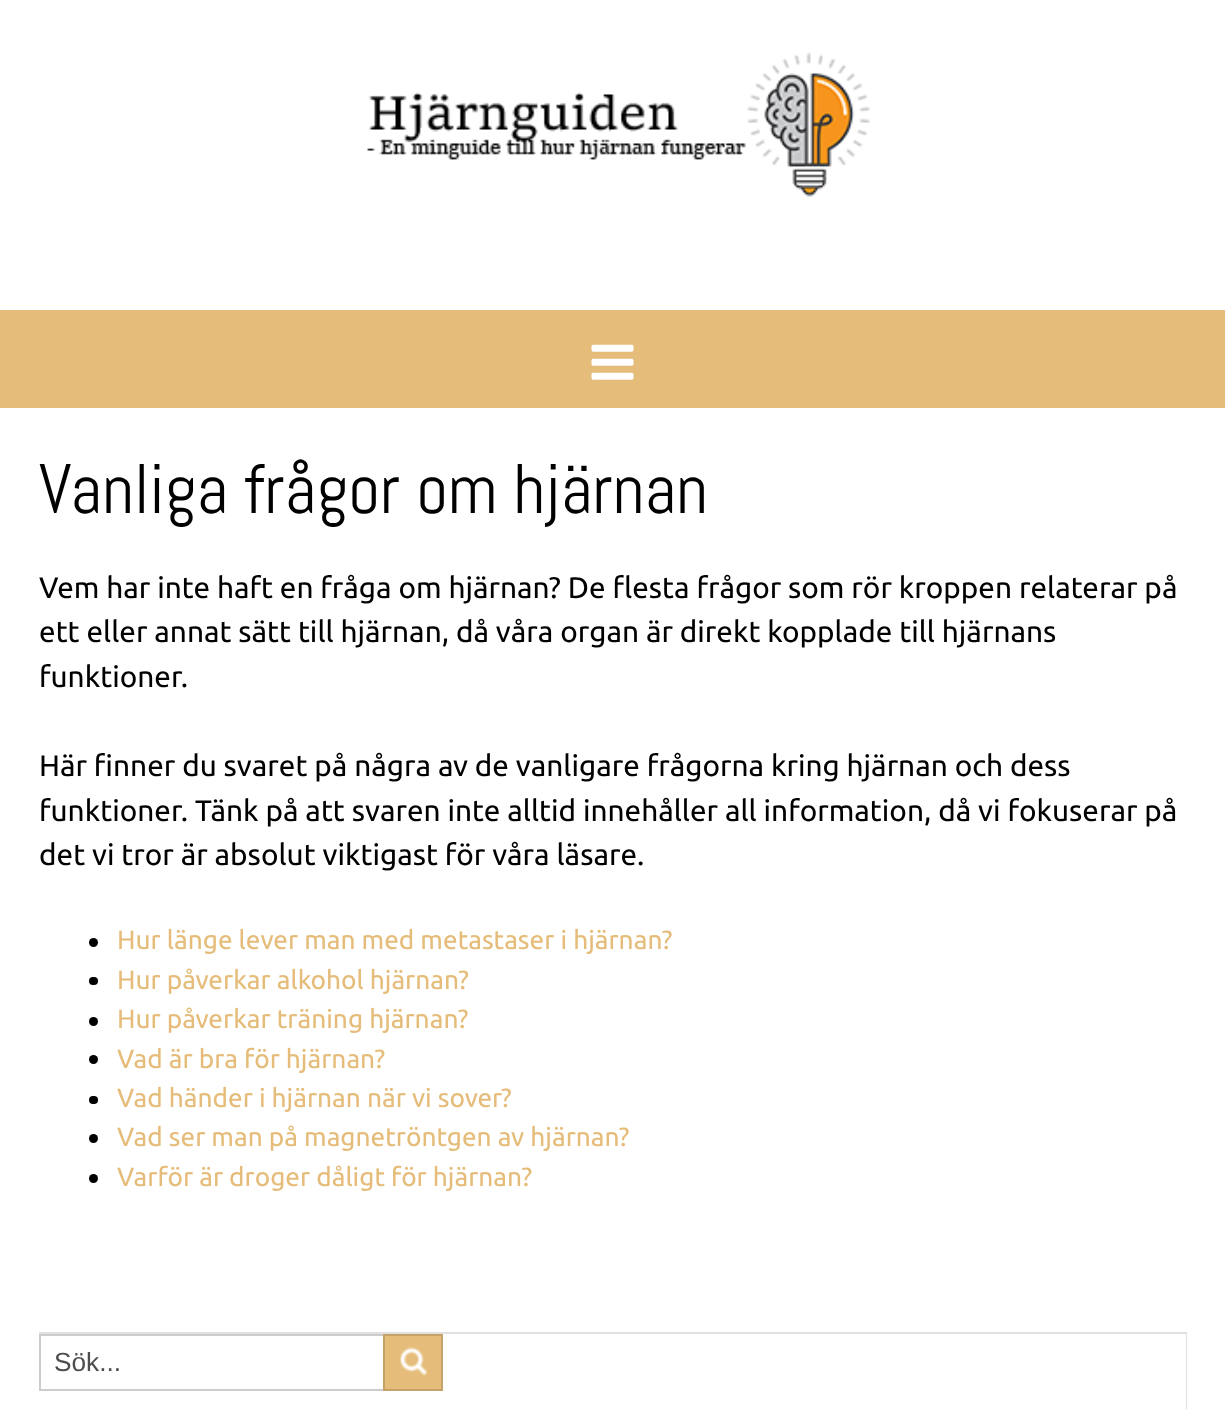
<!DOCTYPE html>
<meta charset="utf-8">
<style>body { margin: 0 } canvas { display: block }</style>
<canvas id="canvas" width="1225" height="1409"></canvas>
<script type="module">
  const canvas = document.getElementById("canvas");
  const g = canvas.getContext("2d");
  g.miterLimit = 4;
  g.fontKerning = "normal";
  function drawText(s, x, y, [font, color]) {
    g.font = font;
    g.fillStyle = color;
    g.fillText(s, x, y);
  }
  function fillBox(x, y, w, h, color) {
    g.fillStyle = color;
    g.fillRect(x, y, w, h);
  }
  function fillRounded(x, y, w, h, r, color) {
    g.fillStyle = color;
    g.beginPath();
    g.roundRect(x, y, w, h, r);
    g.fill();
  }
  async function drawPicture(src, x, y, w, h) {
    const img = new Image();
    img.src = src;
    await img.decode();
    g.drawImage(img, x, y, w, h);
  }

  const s1 = ["70px Abel", "#000000"];
  const s2 = ["29.75px Ubuntu", "#000000"];
  const s3 = ["26.25px Ubuntu", "#E5BC79"];
  const s4 = ["26.25px Liberation Sans", "#4D4D4D"];

  fillBox(0, 0, 1225, 1409, "#FFFFFF");
  await drawPicture("pic1.png", 367, 52, 503, 145);
  fillBox(0, 310, 1225, 98, "#E5BC79");
  await drawPicture("pic2.png", 591, 344, 43, 36);
  drawText("Vanliga frågor om hjärnan", 39, 513, s1);
  drawText("Vem har inte haft en fråga om hjärnan? De flesta frågor som rör kroppen relaterar på", 39, 598, s2);
  drawText("ett eller annat sätt till hjärnan, då våra organ är direkt kopplade till hjärnans", 39, 642, s2);
  drawText("funktioner.", 39, 687, s2);
  drawText("Här finner du svaret på några av de vanligare frågorna kring hjärnan och dess", 39, 776, s2);
  drawText("funktioner. Tänk på att svaren inte alltid innehåller all information, då vi fokuserar på", 39, 821, s2);
  drawText("det vi tror är absolut viktigast för våra läsare.", 39, 865, s2);
  g.beginPath();
  g.arc(93.5, 942.5, 4.5, 0, Math.PI * 2);
  g.fill();
  drawText("Hur länge lever man med metastaser i hjärnan?", 117, 949, s3);
  fillRounded(89, 977, 9, 8, 4, "#000000");
  drawText("Hur påverkar alkohol hjärnan?", 117, 989, s3);
  g.fillStyle = "#000000";
  g.beginPath();
  g.arc(93.5, 1021.5, 4.5, 0, Math.PI * 2);
  g.fill();
  drawText("Hur påverkar träning hjärnan?", 117, 1028, s3);
  g.fillStyle = "#000000";
  g.beginPath();
  g.arc(93.5, 1059.5, 4.5, 0, Math.PI * 2);
  g.fill();
  drawText("Vad är bra för hjärnan?", 117, 1068, s3);
  fillRounded(89, 1096, 9, 8, 4, "#000000");
  drawText("Vad händer i hjärnan när vi sover?", 117, 1107, s3);
  g.fillStyle = "#000000";
  g.beginPath();
  g.arc(93.5, 1138.5, 4.5, 0, Math.PI * 2);
  g.fill();
  drawText("Vad ser man på magnetröntgen av hjärnan?", 117, 1146, s3);
  g.fillStyle = "#000000";
  g.beginPath();
  g.arc(93.5, 1178.5, 4.5, 0, Math.PI * 2);
  g.fill();
  drawText("Varför är droger dåligt för hjärnan?", 117, 1186, s3);
  g.fillStyle = "#E0E0E0";
  g.beginPath();
  g.moveTo(39, 1332);
  g.lineTo(39, 1334);
  g.lineTo(1186, 1334);
  g.lineTo(1186, 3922);
  g.lineTo(1187, 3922);
  g.lineTo(1187, 1332);
  g.closePath();
  g.fill();
  g.strokeStyle = "#CCCCCC";
  g.lineWidth = 2;
  g.strokeRect(40, 1335, 348, 55);
  drawText("Sök...", 54, 1371, s4);
  fillBox(385, 1336, 56, 53, "#E5BC79");
  await drawPicture("pic3.png", 400, 1347, 27, 29);
  g.strokeStyle = "#C5A268";
  g.strokeRect(384, 1335, 58, 55);
</script>
